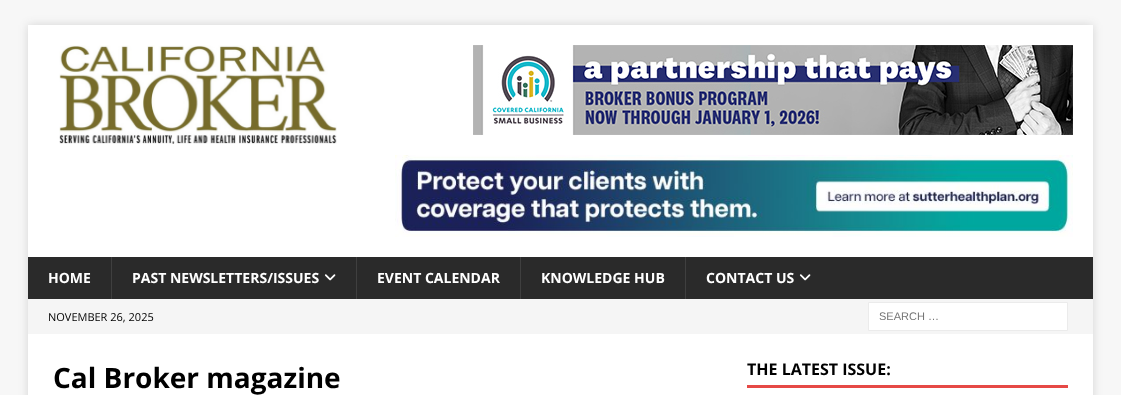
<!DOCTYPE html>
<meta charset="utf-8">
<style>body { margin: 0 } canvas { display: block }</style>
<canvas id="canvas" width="1121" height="395"></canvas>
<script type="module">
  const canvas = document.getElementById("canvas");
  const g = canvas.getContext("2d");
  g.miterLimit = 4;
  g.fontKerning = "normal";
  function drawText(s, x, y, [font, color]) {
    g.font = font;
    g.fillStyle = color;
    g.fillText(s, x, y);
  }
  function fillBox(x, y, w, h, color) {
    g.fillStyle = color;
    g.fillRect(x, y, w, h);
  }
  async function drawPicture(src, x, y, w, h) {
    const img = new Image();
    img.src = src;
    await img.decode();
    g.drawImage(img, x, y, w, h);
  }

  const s1 = ["bold 14px Open Sans", "#FFFFFF"];
  const s2 = ["11px Open Sans", "#000000"];
  const s3 = ["11px Liberation Sans", "#757575"];
  const s4 = ["bold 28px Open Sans", "#000000"];
  const s5 = ["bold 16px Open Sans", "#000000"];

  fillBox(0, 0, 1121, 395, "#F7F7F7");
  g.fillStyle = "rgba(50, 50, 50, 0.17)";
  g.filter = "blur(5px)";
  g.beginPath();
  g.rect(28, 25, 1065, 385);
  g.fill();
  g.filter = "none";
  fillBox(28, 25, 1065, 232, "#FFFFFF");
  await drawPicture("pic1.png", 59, 45, 278, 99);
  await drawPicture("pic2.png", 473, 45, 600, 90);
  await drawPicture("pic3.png", 395, 155, 678, 82);
  fillBox(28, 257, 1065, 42, "#2A2A2A");
  drawText("HOME", 48, 283, s1);
  fillBox(111, 257, 1, 42, "#3F3F3F");
  drawText("PAST NEWSLETTERS/ISSUES", 132, 283, s1);
  await drawPicture("pic4.png", 324, 274, 12, 7);
  fillBox(356, 257, 1, 42, "#3F3F3F");
  drawText("EVENT CALENDAR", 377, 283, s1);
  fillBox(520, 257, 1, 42, "#3F3F3F");
  drawText("KNOWLEDGE HUB", 541, 283, s1);
  fillBox(685, 257, 1, 42, "#3F3F3F");
  drawText("CONTACT US", 706, 283, s1);
  await drawPicture("pic4.png", 799, 274, 12, 7);
  fillBox(28, 299, 1065, 35, "#F5F5F5");
  drawText("NOVEMBER 26, 2025", 48, 321, s2);
  g.fillStyle = "#FFFFFF";
  g.beginPath();
  g.rect(868.5, 302.5, 199, 28);
  g.fill();
  g.strokeStyle = "#EBEBEB";
  g.stroke();
  drawText("SEARCH …", 879, 320, s3);
  fillBox(28, 334, 1065, 61, "#FFFFFF");
  drawText("Cal Broker magazine", 53, 388, s4);
  fillBox(747, 385, 321, 3, "#E64946");
  g.save();
  g.beginPath();
  g.rect(747, 359, 321, 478);
  g.clip();
  drawText("THE LATEST ISSUE:", 747, 375, s5);
  g.restore();
</script>
